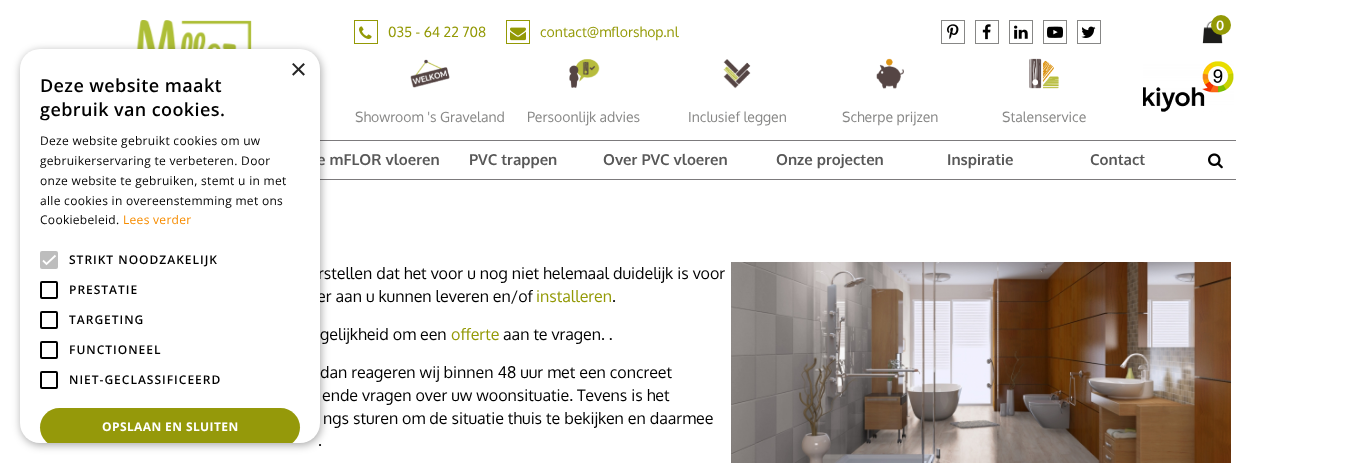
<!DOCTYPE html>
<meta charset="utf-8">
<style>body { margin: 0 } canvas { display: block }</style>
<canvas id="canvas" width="1371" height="463"></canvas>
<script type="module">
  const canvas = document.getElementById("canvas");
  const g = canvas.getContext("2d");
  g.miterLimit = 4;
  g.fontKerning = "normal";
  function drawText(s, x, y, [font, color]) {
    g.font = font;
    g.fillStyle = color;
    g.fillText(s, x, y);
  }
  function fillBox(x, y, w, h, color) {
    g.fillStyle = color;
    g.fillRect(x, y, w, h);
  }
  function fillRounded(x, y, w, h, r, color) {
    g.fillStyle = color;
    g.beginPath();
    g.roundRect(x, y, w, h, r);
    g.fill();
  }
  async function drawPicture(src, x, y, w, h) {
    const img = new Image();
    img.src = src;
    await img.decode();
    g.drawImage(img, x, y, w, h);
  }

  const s1 = ["bold 15px Oxygen", "#585858"];
  const s2 = ["16px Oxygen", "#000000"];
  const s3 = ["29px Liberation Sans", "#262626"];
  const s4 = ["600 18px Open Sans", "#000000"];
  const s5 = ["12px Open Sans", "#000000"];
  const s6 = ["12px Open Sans", "#F68C01"];
  const s7 = ["600 12px Open Sans", "#000000"];
  const s8 = ["bold 12px Open Sans", "#FFFFFF"];
  const s9 = ["14px Oxygen", "#939905"];
  const s10 = ["bold 13px Oxygen", "#FFFFFF"];
  const s11 = ["14px Oxygen", "#878786"];
  const s12 = ["16px Oxygen", "#939905"];

  fillBox(0, 0, 1371, 463, "#FFFFFF");
  await drawPicture("pic1.png", 136, 20, 116, 29);
  fillBox(320, 140, 916, 1, "#7C7A7C");
  fillBox(320, 179, 916, 1, "#7C7A7C");
  g.fillStyle = "rgba(0, 0, 0, 0.35)";
  g.filter = "blur(4px)";
  g.beginPath();
  g.roundRect(21, 51, 300, 394, 20);
  g.fill();
  g.filter = "none";
  drawText("e mFLOR vloeren", 317, 165, s1);
  drawText("rstellen dat het voor u nog niet helemaal duidelijk is voor", 318, 279, s2);
  drawText("er aan u kunnen leveren en/of", 317, 302, s2);
  fillRounded(20, 49, 300, 394, 20, "#FFFFFF");
  drawText("×", 290, 79, s3);
  g.letterSpacing = "0.4px";
  drawText("Deze website maakt", 40, 92, s4);
  drawText("gebruik van cookies.", 40, 116, s4);
  g.letterSpacing = "0.3px";
  drawText("Deze website gebruikt cookies om uw", 40, 145, s5);
  drawText("gebruikerservaring te verbeteren. Door", 40, 165, s5);
  drawText("onze website te gebruiken, stemt u in met", 40, 185, s5);
  drawText("alle cookies in overeenstemming met ons", 40, 205, s5);
  drawText("Cookiebeleid.", 40, 224, s5);
  drawText("Lees verder", 123, 224, s6);
  fillRounded(40, 251, 18, 18, 2, "#BDBDBD");
  g.beginPath();
  g.moveTo(43, 260.5);
  g.lineTo(46.5, 264);
  g.lineTo(55.5, 255.5);
  g.strokeStyle = "#FFFFFF";
  g.lineWidth = 1.8;
  g.stroke();
  g.letterSpacing = "1px";
  drawText("STRIKT NOODZAKELIJK", 69, 264, s7);
  g.beginPath();
  g.roundRect(41, 282, 16, 16, 1);
  g.strokeStyle = "#000000";
  g.lineWidth = 2;
  g.stroke();
  drawText("PRESTATIE", 69, 294, s7);
  g.beginPath();
  g.roundRect(41, 312, 16, 16, 1);
  g.stroke();
  drawText("TARGETING", 69, 324, s7);
  g.beginPath();
  g.roundRect(41, 342, 16, 16, 1);
  g.stroke();
  drawText("FUNCTIONEEL", 69, 354, s7);
  g.beginPath();
  g.roundRect(41, 372, 16, 16, 1);
  g.stroke();
  drawText("NIET-GECLASSIFICEERD", 69, 384, s7);
  g.save();
  g.beginPath();
  g.roundRect(20, 49, 300, 394, 20);
  g.clip();
  fillRounded(40, 408, 260, 39, 19.5, "#95990A");
  g.restore();
  g.letterSpacing = "0.4px";
  drawText("OPSLAAN EN SLUITEN", 102, 431, s8);
  g.strokeStyle = "#939905";
  g.lineWidth = 1;
  g.strokeRect(354.5, 20.5, 23, 23);
  await drawPicture("pic2.png", 359, 26, 13, 13);
  g.letterSpacing = "0px";
  drawText("035 - 64 22 708", 388, 37, s9);
  g.strokeRect(506.5, 20.5, 23, 23);
  await drawPicture("pic3.png", 510, 27, 16, 14);
  drawText("contact@mflorshop.nl", 540, 37, s9);
  g.strokeStyle = "#878786";
  g.strokeRect(941.5, 20.5, 23, 23);
  await drawPicture("pic4.png", 947, 24, 12, 16);
  g.strokeRect(975.5, 20.5, 23, 23);
  await drawPicture("pic5.png", 982, 24, 9, 16);
  g.strokeRect(1009.5, 20.5, 23, 23);
  await drawPicture("pic6.png", 1014, 25, 14, 14);
  g.strokeRect(1043.5, 20.5, 23, 23);
  await drawPicture("pic7.png", 1047, 26, 16, 12);
  g.strokeRect(1077.5, 20.5, 23, 23);
  await drawPicture("pic8.png", 1081, 26, 15, 12);
  await drawPicture("pic9.png", 1202, 21, 21, 23);
  g.beginPath();
  g.arc(1221, 25, 10, 0, Math.PI * 2);
  g.fill();
  drawText("0", 1216, 30, s10);
  await drawPicture("pic10.png", 1143, 61, 91, 51);
  await drawPicture("pic11.png", 410, 59, 40, 29);
  drawText("Showroom 's Graveland", 355, 122, s11);
  await drawPicture("pic12.png", 569, 59, 31, 29);
  drawText("Persoonlijk advies", 527, 122, s11);
  await drawPicture("pic13.png", 723, 59, 28, 30);
  drawText("Inclusief leggen", 688, 122, s11);
  await drawPicture("pic14.png", 876, 58, 28, 31);
  drawText("Scherpe prijzen", 842, 122, s11);
  await drawPicture("pic15.png", 1029, 58, 30, 31);
  drawText("Stalenservice", 1002, 122, s11);
  drawText("PVC trappen", 469, 165, s1);
  drawText("Over PVC vloeren", 603, 165, s1);
  drawText("Onze projecten", 776, 165, s1);
  drawText("Inspiratie", 947, 165, s1);
  drawText("Contact", 1090, 165, s1);
  await drawPicture("pic16.png", 1208, 153, 15, 16);
  await drawPicture("pic17.png", 731, 262, 500, 201);
  drawText("installeren", 536, 302, s12);
  drawText(".", 612, 302, s2);
  drawText("gelijkheid om een", 320, 340, s2);
  drawText("offerte", 451, 340, s12);
  drawText("aan te vragen. .", 503, 340, s2);
  drawText("dan reageren wij binnen 48 uur met een concreet", 320, 378, s2);
  drawText("ende vragen over uw woonsituatie. Tevens is het", 322, 401, s2);
  drawText("ngs sturen om de situatie thuis te bekijken en daarmee", 323, 424, s2);
  drawText(".", 318, 446, s2);
</script>
